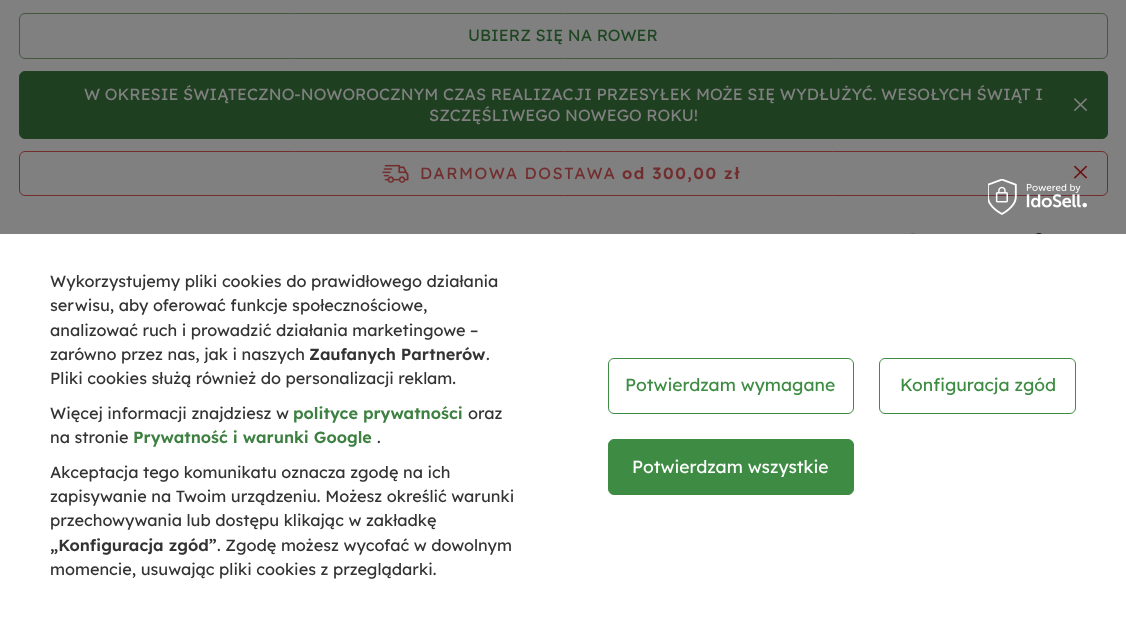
<!DOCTYPE html>
<meta charset="utf-8">
<style>body { margin: 0 } canvas { display: block }</style>
<canvas id="canvas" width="1126" height="617"></canvas>
<script type="module">
  const canvas = document.getElementById("canvas");
  const g = canvas.getContext("2d");
  g.miterLimit = 4;
  g.fontKerning = "normal";
  function drawText(s, x, y, [font, color]) {
    g.font = font;
    g.fillStyle = color;
    g.fillText(s, x, y);
  }
  function fillBox(x, y, w, h, color) {
    g.fillStyle = color;
    g.fillRect(x, y, w, h);
  }
  async function drawPicture(src, x, y, w, h) {
    const img = new Image();
    img.src = src;
    await img.decode();
    g.drawImage(img, x, y, w, h);
  }

  const s1 = ["16.25px Lexend Deca", "#1F4622"];
  const s2 = ["16.25px Lexend Deca", "#808080"];
  const s3 = ["16.25px Lexend Deca", "#722E2E"];
  const s4 = ["600 16.25px Lexend Deca", "#722E2E"];
  const s5 = ["16.25px 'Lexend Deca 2'", "#333333"];
  const s6 = ["600 16.25px 'Lexend Deca 2'", "#333333"];
  const s7 = ["600 16.25px 'Lexend Deca 2'", "#3D8041"];
  const s8 = ["17.5px Lexend Deca", "#3E8C43"];
  const s9 = ["17.5px Lexend Deca", "#FFFFFF"];

  fillBox(0, 0, 1126, 617, "#808080");
  g.beginPath();
  g.roundRect(19.5, 13.5, 1088, 45, 5.5);
  g.strokeStyle = "#465740";
  g.stroke();
  drawText("UBIERZ SIĘ NA ROWER", 468, 41, s1);
  g.fillStyle = "#1F3F21";
  g.beginPath();
  g.roundRect(19.5, 71.5, 1088, 67, 5.5);
  g.fill();
  g.strokeStyle = "#1F4021";
  g.stroke();
  drawText("W OKRESIE ŚWIĄTECZNO-NOWOROCZNYM CZAS REALIZACJI PRZESYŁEK MOŻE SIĘ WYDŁUŻYĆ. WESOŁYCH ŚWIĄT I", 84, 100, s2);
  drawText("SZCZĘŚLIWEGO NOWEGO ROKU!", 429, 121, s2);
  await drawPicture("pic1.png", 1073, 98, 15, 14);
  g.beginPath();
  g.roundRect(19.5, 151.5, 1088, 44, 5.5);
  g.strokeStyle = "#722E2E";
  g.stroke();
  await drawPicture("pic2.png", 382, 164, 27, 19);
  g.letterSpacing = "1.5px";
  drawText("DARMOWA DOSTAWA", 420, 179, s3);
  drawText("od 300,00 zł", 622, 179, s4);
  await drawPicture("pic3.png", 1073, 165, 15, 14);
  await drawPicture("pic4.png", 910, 233, 5, 1);
  await drawPicture("pic5.png", 1036, 233, 6, 1);
  fillBox(0, 234, 1126, 383, "#FFFFFF");
  await drawPicture("pic6.png", 988, 179, 99, 36);
  g.letterSpacing = "0px";
  drawText("Wykorzystujemy pliki cookies do prawidłowego działania", 50, 287, s5);
  drawText("serwisu, aby oferować funkcje społecznościowe,", 50, 311, s5);
  drawText("analizować ruch i prowadzić działania marketingowe –", 50, 336, s5);
  drawText("zarówno przez nas, jak i naszych", 50, 360, s5);
  drawText("Zaufanych Partnerów", 309, 360, s6);
  drawText(".", 486, 360, s5);
  drawText("Pliki cookies służą również do personalizacji reklam.", 50, 384, s5);
  drawText("Więcej informacji znajdziesz w", 50, 419, s5);
  drawText("polityce prywatności", 293, 419, s7);
  drawText("oraz", 468, 419, s5);
  drawText("na stronie", 50, 443, s5);
  drawText("Prywatność i warunki Google", 133, 443, s7);
  drawText(".", 377, 443, s5);
  drawText("Akceptacja tego komunikatu oznacza zgodę na ich", 50, 478, s5);
  drawText("zapisywanie na Twoim urządzeniu. Możesz określić warunki", 50, 502, s5);
  drawText("przechowywania lub dostępu klikając w zakładkę", 50, 526, s5);
  drawText("„Konfiguracja zgód”", 50, 551, s6);
  drawText(". Zgodę możesz wycofać w dowolnym", 217, 551, s5);
  drawText("momencie, usuwając pliki cookies z przeglądarki.", 50, 575, s5);
  g.beginPath();
  g.roundRect(608.5, 358.5, 245, 55, 5.5);
  g.strokeStyle = "#3E8C43";
  g.stroke();
  drawText("Potwierdzam wymagane", 625, 391, s8);
  g.beginPath();
  g.roundRect(879.5, 358.5, 196, 55, 5.5);
  g.stroke();
  drawText("Konfiguracja zgód", 900, 391, s8);
  g.beginPath();
  g.roundRect(608.5, 439.5, 245, 55, 5.5);
  g.fill();
  g.stroke();
  drawText("Potwierdzam wszystkie", 632, 473, s9);
</script>
